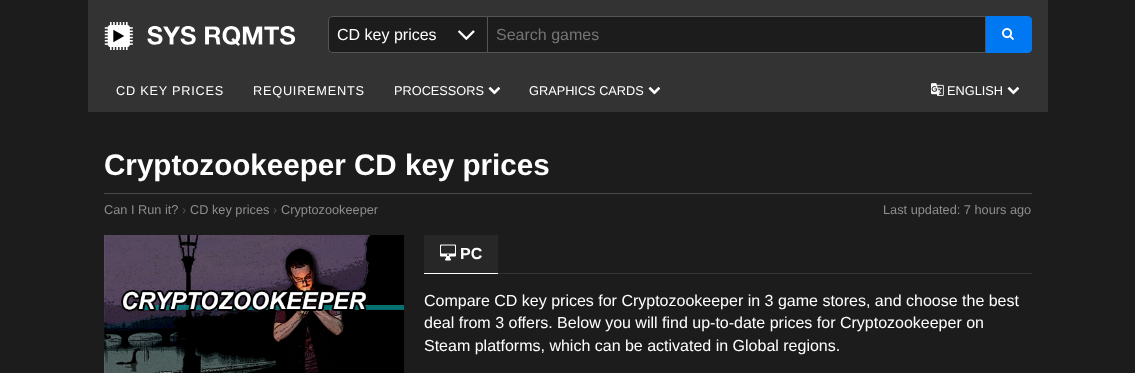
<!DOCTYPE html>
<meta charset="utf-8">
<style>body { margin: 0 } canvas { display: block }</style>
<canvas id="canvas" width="1135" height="373"></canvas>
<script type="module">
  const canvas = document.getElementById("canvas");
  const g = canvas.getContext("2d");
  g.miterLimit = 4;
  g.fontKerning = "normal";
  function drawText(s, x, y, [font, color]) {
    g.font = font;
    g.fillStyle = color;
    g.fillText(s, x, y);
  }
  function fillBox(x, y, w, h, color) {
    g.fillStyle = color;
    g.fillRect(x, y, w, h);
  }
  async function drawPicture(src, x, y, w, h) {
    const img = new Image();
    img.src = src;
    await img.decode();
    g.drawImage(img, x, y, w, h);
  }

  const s1 = ["16px Liberation Sans", "#FFFFFF"];
  const s2 = ["16px Liberation Sans", "#757575"];
  const s3 = ["12.75px Liberation Sans", "#FFFFFF"];
  const s4 = ["bold 29.6px Liberation Sans", "#FFFFFF"];
  const s5 = ["12.75px Liberation Sans", "#8E8E8E"];
  const s6 = ["12.75px Liberation Sans", "#555555"];
  const s7 = ["bold 16px Liberation Sans", "#FFFFFF"];

  fillBox(0, 0, 1135, 373, "#1C1C1C");
  fillBox(424, 235, 74, 38, "#272727");
  fillBox(88, 0, 960, 112, "#333333");
  await drawPicture("pic1.png", 104, 22, 192, 28);
  g.fillStyle = "#1C1C1C";
  g.beginPath();
  g.roundRect(328, 16, 160, 37, [4, 0, 0, 4]);
  g.fill();
  await drawPicture("pic2.png", 458, 30, 17, 10);
  g.beginPath();
  g.roundRect(328.5, 16.5, 159, 36, [3.5, 0, 0, 3.5]);
  g.strokeStyle = "rgba(255, 255, 255, 0.25)";
  g.stroke();
  drawText("CD key prices", 337, 40, s1);
  g.fillStyle = "#0078F2";
  g.beginPath();
  g.roundRect(985.5, 16.5, 46, 36, [0, 3.5, 3.5, 0]);
  g.fill();
  g.strokeStyle = "#0078F2";
  g.stroke();
  g.fillStyle = "#1C1C1C";
  g.beginPath();
  g.rect(487.5, 16.5, 498, 36);
  g.fill();
  g.strokeStyle = "#555555";
  g.stroke();
  drawText("Search games", 496, 40, s2);
  await drawPicture("pic3.png", 1002, 28, 12, 12);
  g.letterSpacing = "0.75px";
  drawText("CD KEY PRICES", 116, 95, s3);
  drawText("REQUIREMENTS", 253, 95, s3);
  g.letterSpacing = "0px";
  drawText("PROCESSORS", 394, 95, s3);
  await drawPicture("pic4.png", 488, 87, 13, 8);
  drawText("GRAPHICS CARDS", 529, 95, s3);
  await drawPicture("pic4.png", 648, 87, 13, 8);
  await drawPicture("pic5.png", 931, 83, 13, 13);
  drawText("ENGLISH", 947, 95, s3);
  await drawPicture("pic4.png", 1007, 87, 13, 8);
  drawText("Cryptozookeeper CD key prices", 104, 175, s4);
  fillBox(104, 193, 928, 1, "#494949");
  drawText("Can I Run it?", 104, 214, s5);
  drawText("›", 182, 214, s6);
  drawText("CD key prices", 190, 214, s5);
  drawText("›", 273, 214, s6);
  drawText("Cryptozookeeper", 281, 214, s5);
  drawText("Last updated: 7 hours ago", 883, 214, s5);
  await drawPicture("pic6.png", 104, 235, 300, 138);
  await drawPicture("pic7.png", 440, 244, 16, 17);
  drawText("PC", 460, 259, s7);
  fillBox(424, 273, 74, 1, "#FFFFFF");
  fillBox(498, 273, 534, 1, "#333333");
  drawText("Compare CD key prices for Cryptozookeeper in 3 game stores, and choose the best", 424, 306, s1);
  drawText("deal from 3 offers. Below you will find up-to-date prices for Cryptozookeeper on", 424, 328, s1);
  drawText("Steam platforms, which can be activated in Global regions.", 424, 351, s1);
</script>
